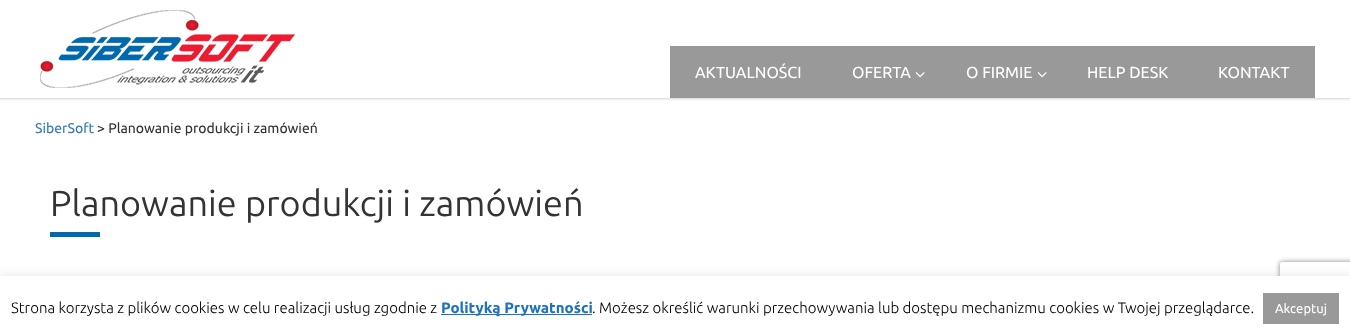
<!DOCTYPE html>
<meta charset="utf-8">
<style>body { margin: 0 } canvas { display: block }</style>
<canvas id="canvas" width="1350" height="336"></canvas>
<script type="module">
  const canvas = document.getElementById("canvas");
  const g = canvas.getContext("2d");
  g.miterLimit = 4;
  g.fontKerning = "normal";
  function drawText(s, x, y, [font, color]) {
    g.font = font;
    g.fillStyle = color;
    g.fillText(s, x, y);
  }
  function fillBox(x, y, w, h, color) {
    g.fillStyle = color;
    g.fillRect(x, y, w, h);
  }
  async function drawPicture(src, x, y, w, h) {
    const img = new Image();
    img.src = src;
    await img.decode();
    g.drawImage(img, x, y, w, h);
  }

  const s1 = ["16px Ubuntu", "#FFFFFF"];
  const s2 = ["14px Ubuntu", "#337AB7"];
  const s3 = ["14px Ubuntu", "#333333"];
  const s4 = ["36px 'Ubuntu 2'", "#333333"];
  const s5 = ["300 15px Ubuntu", "#000000"];
  const s6 = ["bold 15px Ubuntu", "#1E73BE"];
  const s7 = ["13px Ubuntu", "#FFFFFF"];

  fillBox(0, 0, 1350, 336, "#FFFFFF");
  g.save();
  g.beginPath();
  g.rect(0, 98, 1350, 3);
  g.clip();
  g.fillStyle = "rgba(0, 0, 0, 0.75)";
  g.filter = "blur(2.5px)";
  g.beginPath();
  g.rect(-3, -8, 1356, 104);
  g.fill();
  g.filter = "none";
  g.restore();
  await drawPicture("pic1.png", 40, 10, 255, 78);
  fillBox(670, 46, 645, 52, "#999999");
  drawText("AKTUALNOŚCI", 695, 78, s1);
  drawText("OFERTA", 852, 78, s1);
  await drawPicture("pic2.png", 915, 72, 10, 6);
  drawText("O FIRMIE", 966, 78, s1);
  await drawPicture("pic2.png", 1037, 72, 10, 6);
  drawText("HELP DESK", 1087, 78, s1);
  drawText("KONTAKT", 1218, 78, s1);
  drawText("SiberSoft", 35, 133, s2);
  drawText("> Planowanie produkcji i zamówień", 97, 133, s3);
  drawText("Planowanie produkcji i zamówień", 50, 216, s4);
  fillBox(50, 232, 50, 5, "#0068AC");
  g.save();
  g.beginPath();
  g.moveTo(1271, 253);
  g.lineTo(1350, 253);
  g.lineTo(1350, 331);
  g.lineTo(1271, 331);
  g.closePath();
  g.moveTo(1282, 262);
  g.lineTo(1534, 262);
  g.bezierCurveTo(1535, 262, 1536, 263, 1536, 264);
  g.lineTo(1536, 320);
  g.bezierCurveTo(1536, 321, 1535, 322, 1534, 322);
  g.lineTo(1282, 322);
  g.bezierCurveTo(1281, 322, 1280, 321, 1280, 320);
  g.lineTo(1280, 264);
  g.bezierCurveTo(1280, 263, 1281, 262, 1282, 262);
  g.closePath();
  g.clip("evenodd");
  g.fillStyle = "#808080";
  g.filter = "blur(2.5px)";
  g.beginPath();
  g.roundRect(1280, 262, 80, 60, 2);
  g.fill();
  g.filter = "none";
  g.restore();
  g.fillStyle = "rgba(172, 171, 171, 0.3)";
  g.filter = "blur(5px)";
  g.beginPath();
  g.rect(0, 275, 1350, 60);
  g.fill();
  g.filter = "none";
  fillBox(0, 276, 1350, 60, "#FFFFFF");
  drawText("Strona korzysta z plików cookies w celu realizacji usług zgodnie z", 11, 313, s5);
  fillBox(441, 314, 151, 1, "#1E73BE");
  drawText("Polityką Prywatności", 441, 313, s6);
  drawText(". Możesz określić warunki przechowywania lub dostępu mechanizmu cookies w Twojej przeglądarce.", 592, 313, s5);
  fillBox(1263, 293, 76, 31, "#999999");
  drawText("Akceptuj", 1275, 313, s7);
</script>
